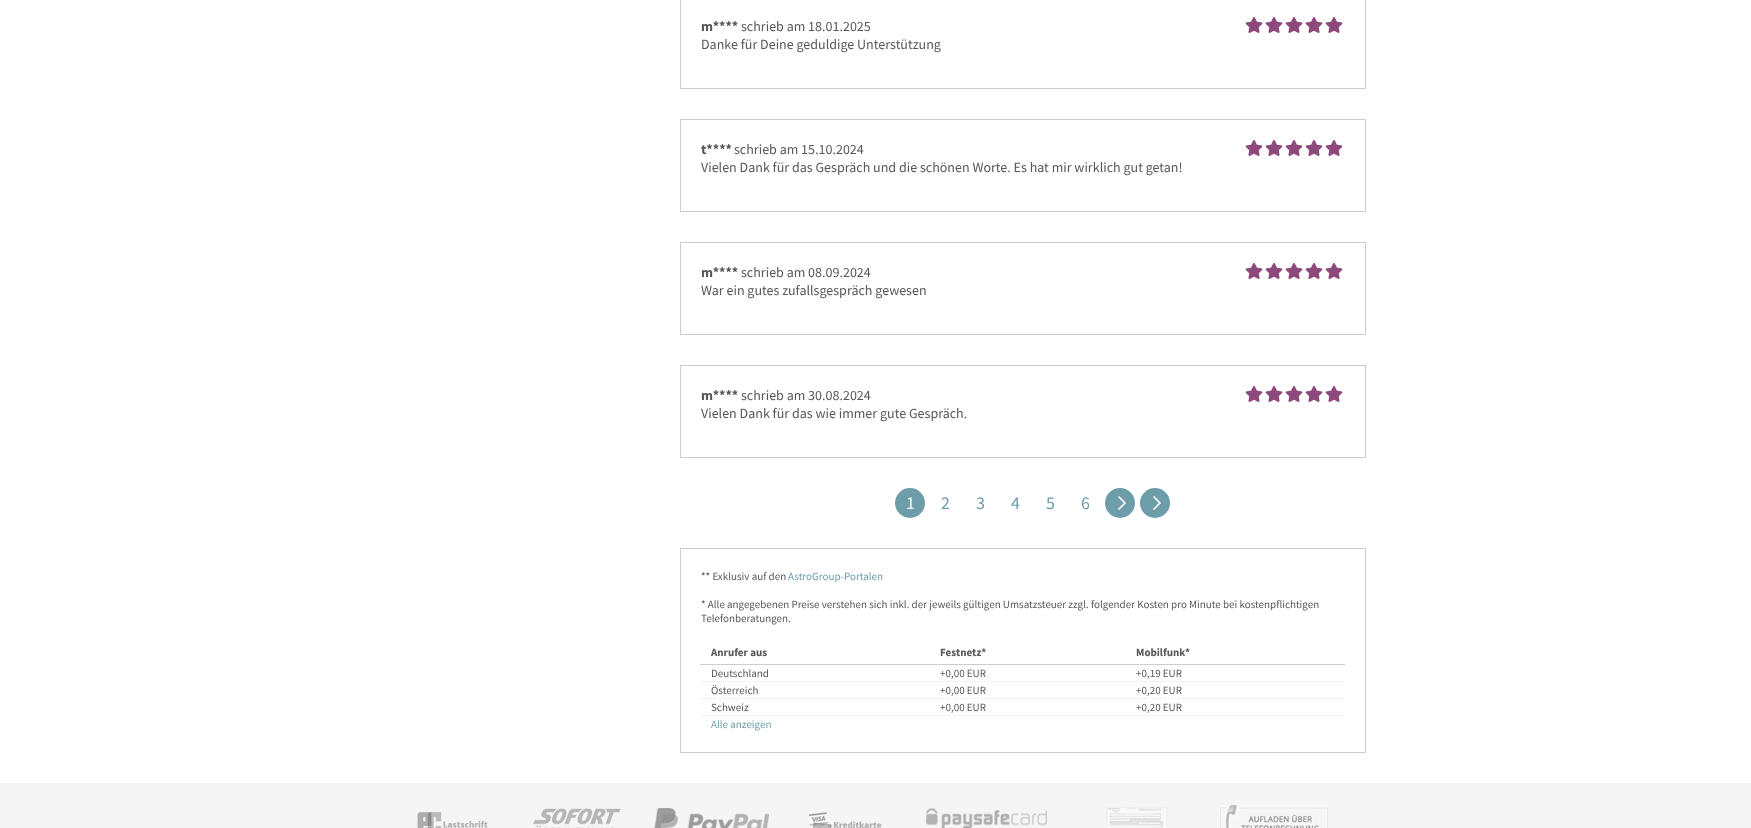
<!DOCTYPE html>
<meta charset="utf-8">
<style>body { margin: 0 } canvas { display: block }</style>
<canvas id="canvas" width="1751" height="828"></canvas>
<script type="module">
  const canvas = document.getElementById("canvas");
  const g = canvas.getContext("2d");
  g.miterLimit = 4;
  g.fontKerning = "normal";
  function drawText(s, x, y, [font, color]) {
    g.font = font;
    g.fillStyle = color;
    g.fillText(s, x, y);
  }
  function fillBox(x, y, w, h, color) {
    g.fillStyle = color;
    g.fillRect(x, y, w, h);
  }
  async function drawPicture(src, x, y, w, h) {
    const img = new Image();
    img.src = src;
    await img.decode();
    g.drawImage(img, x, y, w, h);
  }

  const s1 = ["bold 14px Source Sans Pro", "#58585A"];
  const s2 = ["14px Source Sans Pro", "#58585A"];
  const s3 = ["18px Source Sans Pro", "#FFFFFF"];
  const s4 = ["18px Source Sans Pro", "#6D9DA9"];
  const s5 = ["11px Source Sans Pro", "#58585A"];
  const s6 = ["11px Source Sans Pro", "#6D9DA9"];
  const s7 = ["bold 11px Source Sans Pro", "#58585A"];

  fillBox(0, 0, 1751, 828, "#FFFFFF");
  fillBox(700, 681, 426, 1, "#F2F2F2");
  fillBox(930, 681, 1, 1, "#E6E6E6");
  fillBox(700, 698, 426, 1, "#F2F2F2");
  fillBox(930, 698, 1, 1, "#E6E6E6");
  g.strokeStyle = "#CDCDCD";
  g.strokeRect(680.5, -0.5, 685, 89);
  drawText("m****", 701, 31, s1);
  drawText("schrieb am 18.01.2025", 741, 31, s2);
  await drawPicture("pic1.png", 1245, 17, 98, 16);
  drawText("Danke für Deine geduldige Unterstützung", 701, 49, s2);
  g.strokeRect(680.5, 119.5, 685, 92);
  drawText("t****", 701, 154, s1);
  drawText("schrieb am 15.10.2024", 734, 154, s2);
  await drawPicture("pic1.png", 1245, 140, 98, 16);
  drawText("Vielen Dank für das Gespräch und die schönen Worte. Es hat mir wirklich gut getan!", 701, 172, s2);
  g.strokeRect(680.5, 242.5, 685, 92);
  drawText("m****", 701, 277, s1);
  drawText("schrieb am 08.09.2024", 741, 277, s2);
  await drawPicture("pic1.png", 1245, 263, 98, 16);
  drawText("War ein gutes zufallsgespräch gewesen", 701, 295, s2);
  g.strokeRect(680.5, 365.5, 685, 92);
  drawText("m****", 701, 400, s1);
  drawText("schrieb am 30.08.2024", 741, 400, s2);
  await drawPicture("pic1.png", 1245, 386, 98, 16);
  drawText("Vielen Dank für das wie immer gute Gespräch.", 701, 418, s2);
  g.fillStyle = "#6D9DA9";
  g.beginPath();
  g.arc(910, 503, 15, 0, Math.PI * 2);
  g.fill();
  drawText("1", 906, 509, s3);
  drawText("2", 941, 509, s4);
  drawText("3", 976, 509, s4);
  drawText("4", 1011, 509, s4);
  drawText("5", 1046, 509, s4);
  drawText("6", 1081, 509, s4);
  g.beginPath();
  g.arc(1120, 503, 15, 0, Math.PI * 2);
  g.fill();
  await drawPicture("pic2.png", 1118, 496, 8, 14);
  g.beginPath();
  g.arc(1155, 503, 15, 0, Math.PI * 2);
  g.fill();
  await drawPicture("pic2.png", 1153, 496, 8, 14);
  g.strokeRect(680.5, 548.5, 685, 204);
  drawText("** Exklusiv auf den", 701, 580, s5);
  drawText("AstroGroup-Portalen", 788, 580, s6);
  drawText("* Alle angegebenen Preise verstehen sich inkl. der jeweils gültigen Umsatzsteuer zzgl. folgender Kosten pro Minute bei kostenpflichtigen", 701, 608, s5);
  drawText("Telefonberatungen.", 701, 622, s5);
  drawText("Anrufer aus", 711, 656, s7);
  drawText("Festnetz*", 940, 656, s7);
  fillBox(700, 664, 645, 1, "#CDCDCD");
  drawText("Mobilfunk*", 1136, 656, s7);
  drawText("Deutschland", 711, 677, s5);
  drawText("+0,00 EUR", 940, 677, s5);
  drawText("+0,19 EUR", 1136, 677, s5);
  drawText("Österreich", 711, 694, s5);
  drawText("+0,00 EUR", 940, 694, s5);
  fillBox(1125, 681, 220, 1, "#F2F2F2");
  fillBox(1125, 681, 1, 1, "#E6E6E6");
  drawText("+0,20 EUR", 1136, 694, s5);
  drawText("Schweiz", 711, 711, s5);
  drawText("+0,00 EUR", 940, 711, s5);
  fillBox(1125, 698, 220, 1, "#F2F2F2");
  fillBox(1125, 698, 1, 1, "#E6E6E6");
  drawText("+0,20 EUR", 1136, 711, s5);
  fillBox(700, 715, 645, 1, "#F2F2F2");
  drawText("Alle anzeigen", 711, 728, s6);
  fillBox(0, 783, 1751, 45, "#F5F5F5");
  await drawPicture("pic3.png", 417, 812, 71, 16);
  await drawPicture("pic4.png", 533, 808, 88, 20);
  await drawPicture("pic5.png", 654, 808, 115, 20);
  await drawPicture("pic6.png", 809, 812, 73, 16);
  await drawPicture("pic7.png", 926, 808, 121, 20);
  await drawPicture("pic8.png", 1106, 807, 62, 21);
  await drawPicture("pic9.png", 1220, 805, 108, 23);
</script>
